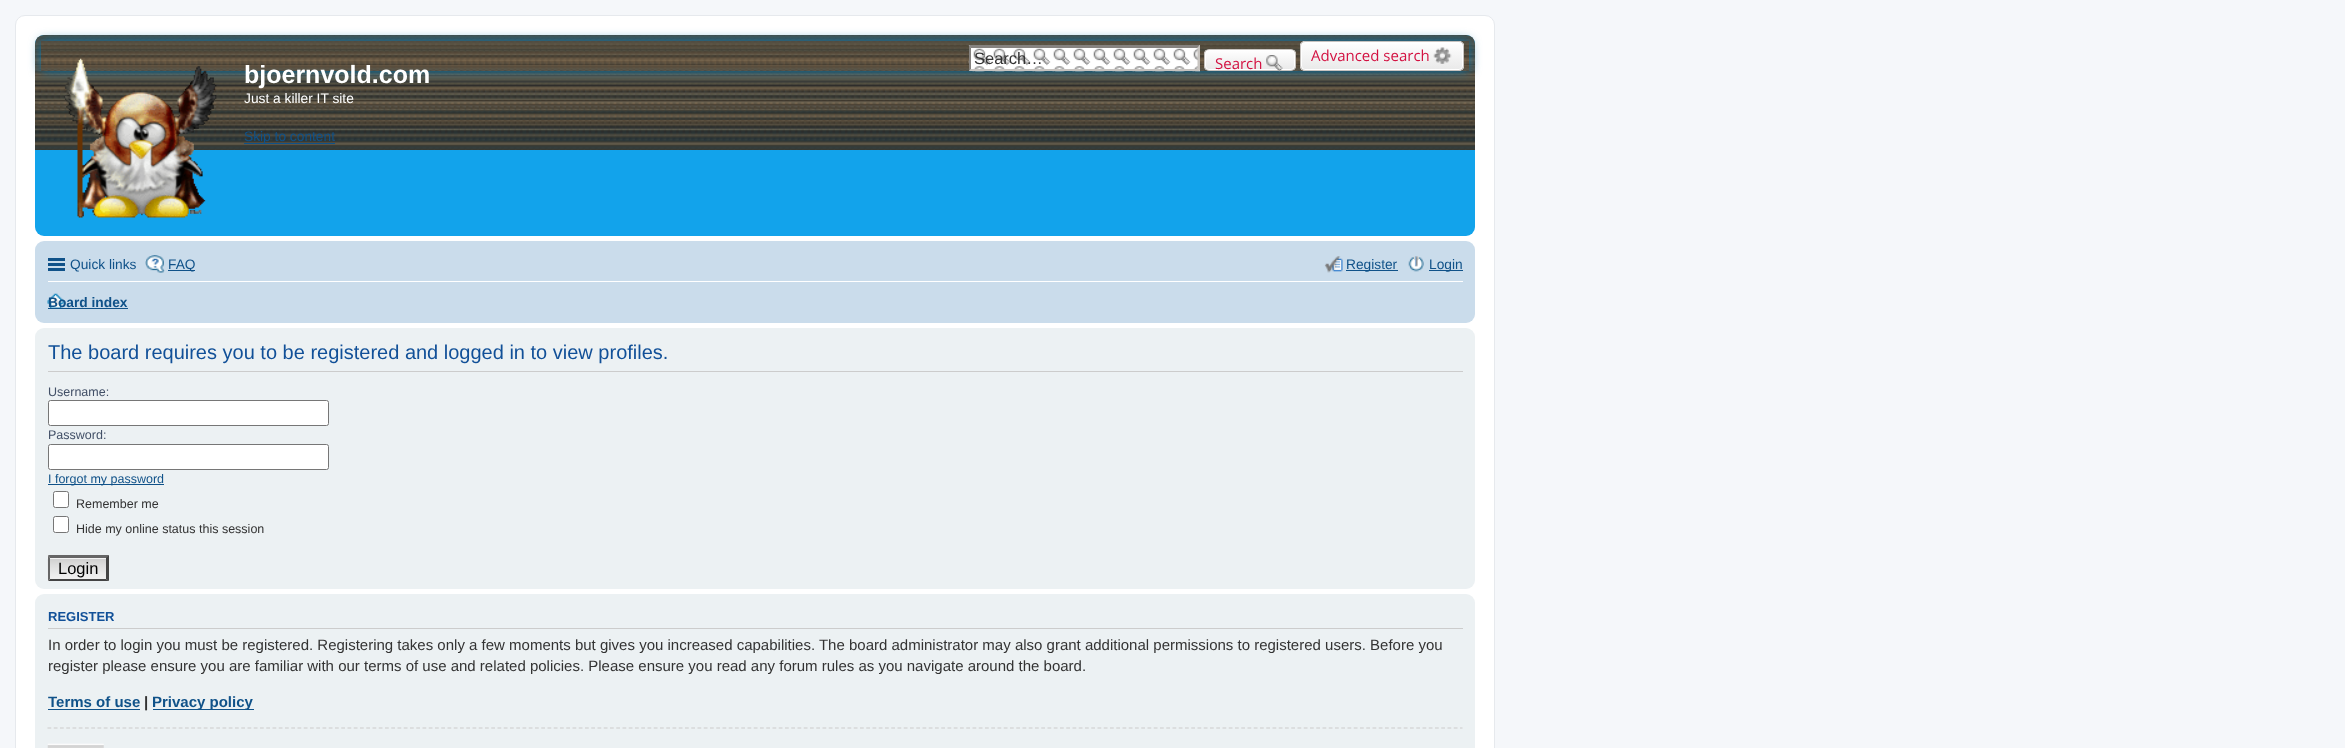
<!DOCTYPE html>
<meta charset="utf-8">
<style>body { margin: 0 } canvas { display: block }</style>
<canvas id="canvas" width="2345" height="748"></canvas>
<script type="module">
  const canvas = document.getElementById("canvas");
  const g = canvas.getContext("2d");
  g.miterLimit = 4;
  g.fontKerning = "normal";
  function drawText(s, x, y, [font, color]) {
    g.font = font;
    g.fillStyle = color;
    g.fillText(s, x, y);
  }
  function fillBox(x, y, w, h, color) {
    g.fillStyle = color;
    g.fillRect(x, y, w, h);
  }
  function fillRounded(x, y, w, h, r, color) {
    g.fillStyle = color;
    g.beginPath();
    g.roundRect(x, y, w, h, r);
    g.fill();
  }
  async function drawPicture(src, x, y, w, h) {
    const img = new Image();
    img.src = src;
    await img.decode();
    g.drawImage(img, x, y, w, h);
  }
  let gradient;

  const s1 = ["16.5px Liberation Sans", "#333333"];
  const s2 = ["15px Open Sans", "#D31141"];
  const s3 = ["bold 25px Liberation Sans", "#FFFFFF"];
  const s4 = ["13.75px Liberation Sans", "#FFFFFF"];
  const s5 = ["13.75px Liberation Sans", "#105289"];
  const s6 = ["bold 13.75px Liberation Sans", "#105289"];
  const s7 = ["20px Liberation Sans", "#115098"];
  const s8 = ["12.5px Liberation Sans", "#425067"];
  const s9 = ["12.5px Liberation Sans", "#105289"];
  const s10 = ["12.5px Liberation Sans", "#333333"];
  const s11 = ["16.5px Liberation Sans", "#000000"];
  const s12 = ["bold 13px Liberation Sans", "#115098"];
  const s13 = ["15px Liberation Sans", "#333333"];
  const s14 = ["bold 15px Liberation Sans", "#105289"];
  const s15 = ["bold 15px Liberation Sans", "#333333"];

  fillBox(0, 0, 2345, 748, "#F5F7FA");
  g.fillStyle = "#FFFFFF";
  g.beginPath();
  g.roundRect(15.5, 15.5, 1479, 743, 9.5);
  g.fill();
  g.strokeStyle = "#E6E9ED";
  g.stroke();
  fillRounded(35, 35, 1440, 201, 9, "#12A3EB");
  await drawPicture("pic1.png", 35, 35, 1440, 115);
  g.save();
  g.beginPath();
  g.moveTo(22, 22);
  g.lineTo(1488, 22);
  g.lineTo(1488, 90);
  g.lineTo(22, 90);
  g.closePath();
  g.moveTo(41, 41);
  g.lineTo(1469, 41);
  g.lineTo(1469, 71);
  g.lineTo(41, 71);
  g.closePath();
  g.clip("evenodd");
  g.fillStyle = "#0075B0";
  g.filter = "blur(6px)";
  g.beginPath();
  g.rect(41, 41, 1428, 30);
  g.fill();
  g.filter = "none";
  g.restore();
  fillBox(969, 45, 231, 26, "#FFFFFF");
  await drawPicture("pic2.png", 968, 45, 232, 27);
  g.fillStyle = "#85827F";
  g.beginPath();
  g.moveTo(969, 45);
  g.lineTo(1200, 45);
  g.lineTo(1198, 48);
  g.lineTo(971, 48);
  g.closePath();
  g.fill();
  g.fillStyle = "#C7C3BF";
  g.beginPath();
  g.moveTo(1200, 45);
  g.lineTo(1200, 71);
  g.lineTo(1197.5, 69);
  g.lineTo(1197.5, 47.5);
  g.closePath();
  g.fill();
  g.beginPath();
  g.moveTo(1200, 71);
  g.lineTo(969, 71);
  g.lineTo(971, 69);
  g.lineTo(1198, 69);
  g.closePath();
  g.fill();
  g.fillStyle = "#85827F";
  g.beginPath();
  g.moveTo(969, 71);
  g.lineTo(969, 45);
  g.lineTo(971, 47.5);
  g.lineTo(971, 69);
  g.closePath();
  g.fill();
  drawText("Search…", 974, 64, s1);
  g.save();
  g.beginPath();
  g.roundRect(1204, 49, 92, 22, 5);
  g.clip();
  gradient = g.createLinearGradient(1250, 50, 1250, 70);
  gradient.addColorStop(0, "#FFFFFF");
  gradient.addColorStop(1, "#E9E9E9");
  g.fillStyle = gradient;
  g.fillRect(1204, 50, 92, 20);
  g.restore();
  g.beginPath();
  g.roundRect(1205.5, 50.5, 89, 19, 3.5);
  g.strokeStyle = "#FFFFFF";
  g.stroke();
  g.beginPath();
  g.roundRect(1204.5, 49.5, 91, 21, 4.5);
  g.strokeStyle = "#C7C3BF";
  g.stroke();
  drawText("Search", 1215, 69, s2);
  await drawPicture("pic3.png", 1266, 55, 17, 17);
  fillRounded(1300, 41, 164, 30, 5, "#FFFFFF");
  g.save();
  g.beginPath();
  g.roundRect(1300, 41, 164, 30, 5);
  g.clip();
  gradient = g.createLinearGradient(1382, 42, 1382, 70);
  gradient.addColorStop(0, "#FFFFFF");
  gradient.addColorStop(1, "#E9E9E9");
  g.fillStyle = gradient;
  g.fillRect(1300, 43, 164, 27);
  g.restore();
  g.beginPath();
  g.roundRect(1301.5, 43.5, 161, 26, 3.5);
  g.strokeStyle = "#FFFFFF";
  g.stroke();
  g.beginPath();
  g.roundRect(1300.5, 41.5, 163, 29, 4.5);
  g.strokeStyle = "#C7C3BF";
  g.stroke();
  drawText("Advanced search", 1311, 61, s2);
  await drawPicture("pic4.png", 1433, 47, 19, 17);
  await drawPicture("pic5.png", 64, 58, 153, 160);
  drawText("bjoernvold.com", 244, 83, s3);
  drawText("Just a killer IT site", 244, 103, s4);
  fillBox(244, 143, 91, 1, "#105289");
  drawText("Skip to content", 244, 141, s5);
  fillRounded(35, 241, 1440, 82, 9, "#CADCEB");
  fillBox(48, 258, 17, 3, "#105289");
  fillBox(48, 263, 17, 3, "#105289");
  fillBox(48, 268, 17, 3, "#105289");
  drawText("Quick links", 70, 269, s5);
  await drawPicture("pic6.png", 145, 255, 20, 18);
  fillBox(168, 270, 27, 1, "#105289");
  drawText("FAQ", 168, 269, s5);
  await drawPicture("pic7.png", 1324, 256, 19, 17);
  fillBox(1346, 270, 52, 1, "#105289");
  drawText("Register", 1346, 269, s5);
  await drawPicture("pic8.png", 1408, 256, 16, 16);
  fillBox(1429, 270, 34, 1, "#105289");
  drawText("Login", 1429, 269, s5);
  fillBox(48, 281, 1415, 1, "#FFFFFF");
  await drawPicture("pic9.png", 47, 293, 17, 15);
  drawText("Board index", 48, 307, s6);
  fillBox(48, 308, 80, 1, "#105289");
  fillRounded(35, 328, 1440, 261, 9, "#ECF1F3");
  fillBox(48, 371, 1415, 1, "#CCCCCC");
  drawText("The board requires you to be registered and logged in to view profiles.", 48, 359, s7);
  drawText("Username:", 48, 396, s8);
  g.fillStyle = "#FFFFFF";
  g.beginPath();
  g.roundRect(48.5, 400.5, 280, 25, 2);
  g.fill();
  g.strokeStyle = "#767676";
  g.stroke();
  drawText("Password:", 48, 439, s8);
  g.fillStyle = "#FFFFFF";
  g.beginPath();
  g.roundRect(48.5, 444.5, 280, 25, 2);
  g.fill();
  g.stroke();
  fillBox(48, 484, 116, 1, "#105289");
  drawText("I forgot my password", 48, 483, s9);
  g.fillStyle = "#FFFFFF";
  g.beginPath();
  g.roundRect(53.5, 491.5, 15, 16, 2);
  g.fill();
  g.stroke();
  drawText("Remember me", 76, 508, s10);
  g.fillStyle = "#FFFFFF";
  g.beginPath();
  g.roundRect(53.5, 516.5, 15, 16, 2);
  g.fill();
  g.stroke();
  drawText("Hide my online status this session", 76, 533, s10);
  await drawPicture("pic10.png", 47, 555, 62, 26);
  g.fillStyle = "#666666";
  g.beginPath();
  g.moveTo(48, 555);
  g.lineTo(109, 555);
  g.lineTo(106, 558);
  g.lineTo(50, 558);
  g.closePath();
  g.fill();
  g.fillStyle = "#444444";
  g.beginPath();
  g.moveTo(109, 555);
  g.lineTo(109, 581);
  g.lineTo(106, 579);
  g.lineTo(106, 557.5);
  g.closePath();
  g.fill();
  g.beginPath();
  g.moveTo(109, 581);
  g.lineTo(48, 581);
  g.lineTo(50, 579);
  g.lineTo(106, 579);
  g.closePath();
  g.fill();
  g.save();
  g.beginPath();
  g.rect(48, 538, 1415, 43);
  g.clip();
  g.fillStyle = "#666666";
  g.beginPath();
  g.moveTo(47.5, 581);
  g.lineTo(47.5, 555);
  g.lineTo(50, 557.5);
  g.lineTo(50, 579);
  g.closePath();
  g.fill();
  g.restore();
  drawText("Login", 58, 574, s11);
  fillRounded(35, 594, 1440, 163, 9, "#ECF1F3");
  fillBox(48, 628, 1415, 1, "#CCCCCC");
  drawText("REGISTER", 48, 621, s12);
  drawText("In order to login you must be registered. Registering takes only a few moments but gives you increased capabilities. The board administrator may also grant additional permissions to registered users. Before you", 48, 650, s13);
  drawText("register please ensure you are familiar with our terms of use and related policies. Please ensure you read any forum rules as you navigate around the board.", 48, 671, s13);
  g.save();
  g.beginPath();
  g.rect(48, 600, 1415, 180);
  g.clip();
  drawText("Terms of use", 48, 707, s14);
  g.restore();
  fillBox(48, 709, 92, 1, "#105289");
  drawText("|", 144, 707, s15);
  fillBox(153, 709, 101, 1, "#105289");
  drawText("Privacy policy", 152, 707, s14);
  g.beginPath();
  g.moveTo(47.5, 728);
  g.lineTo(1462.5, 728);
  g.strokeStyle = "#CCCCCC";
  g.lineWidth = 1.2;
  g.setLineDash([3.75, 2.5]);
  g.stroke();
  await drawPicture("pic11.png", 47, 743, 57, 5);
</script>
